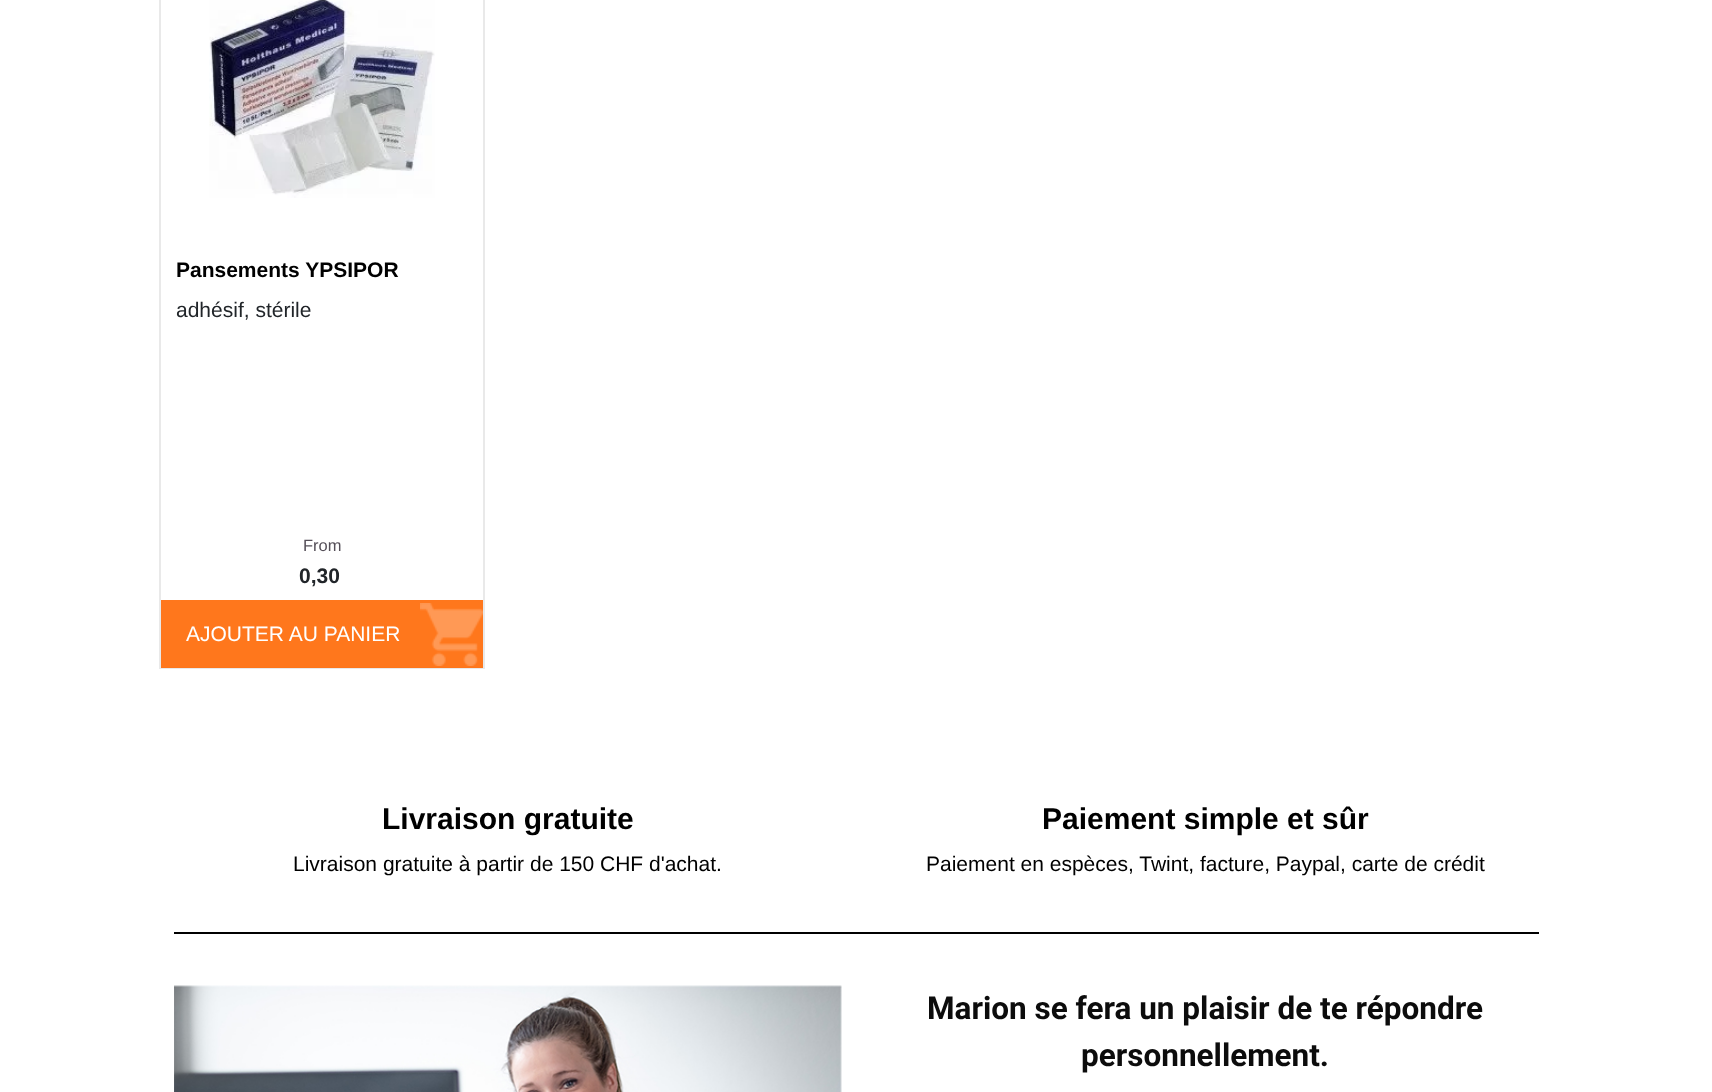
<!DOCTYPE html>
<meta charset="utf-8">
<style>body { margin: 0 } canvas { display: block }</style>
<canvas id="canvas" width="1712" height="1092"></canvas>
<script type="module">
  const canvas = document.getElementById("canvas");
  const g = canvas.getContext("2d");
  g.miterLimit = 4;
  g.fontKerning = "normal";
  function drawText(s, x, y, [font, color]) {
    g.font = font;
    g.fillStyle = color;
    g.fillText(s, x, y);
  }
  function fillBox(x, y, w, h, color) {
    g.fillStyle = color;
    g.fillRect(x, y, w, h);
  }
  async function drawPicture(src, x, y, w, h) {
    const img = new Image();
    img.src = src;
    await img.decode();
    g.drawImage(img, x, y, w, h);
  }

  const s1 = ["bold 21px Liberation Sans", "#000000"];
  const s2 = ["21px Liberation Sans", "#212529"];
  const s3 = ["16.5px Liberation Sans", "#554F58"];
  const s4 = ["bold 21px Liberation Sans", "#212529"];
  const s5 = ["21px Liberation Sans", "#FFFFFF"];
  const s6 = ["bold 30px Liberation Sans", "#000000"];
  const s7 = ["21px Liberation Sans", "#000000"];
  const s8 = ["bold 31.5px Roboto", "#0C0C0C"];

  fillBox(0, 0, 1712, 1092, "#FFFFFF");
  g.strokeStyle = "#E9E9E9";
  g.lineWidth = 2;
  g.strokeRect(160, -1, 324, 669);
  await drawPicture("pic1.png", 209, 0, 226, 198);
  drawText("Pansements YPSIPOR", 176, 277, s1);
  drawText("adhésif, stérile", 176, 317, s2);
  drawText("From", 303, 551, s3);
  drawText("0,30", 299, 583, s4);
  fillBox(161, 600, 322, 68, "rgba(255, 102, 0, 0.89)");
  await drawPicture("pic2.png", 420, 603, 63, 63);
  drawText("AJOUTER AU PANIER", 186, 641, s5);
  drawText("Livraison gratuite", 382, 829, s6);
  drawText("Livraison gratuite à partir de 150 CHF d'achat.", 293, 871, s7);
  drawText("Paiement simple et sûr", 1042, 829, s6);
  drawText("Paiement en espèces, Twint, facture, Paypal, carte de crédit", 926, 871, s7);
  fillBox(174, 932, 1365, 2, "#000000");
  await drawPicture("pic3.png", 174, 985, 668, 107);
  drawText("Marion se fera un plaisir de te répondre", 927, 1019, s8);
  drawText("personnellement.", 1081, 1066, s8);
</script>
